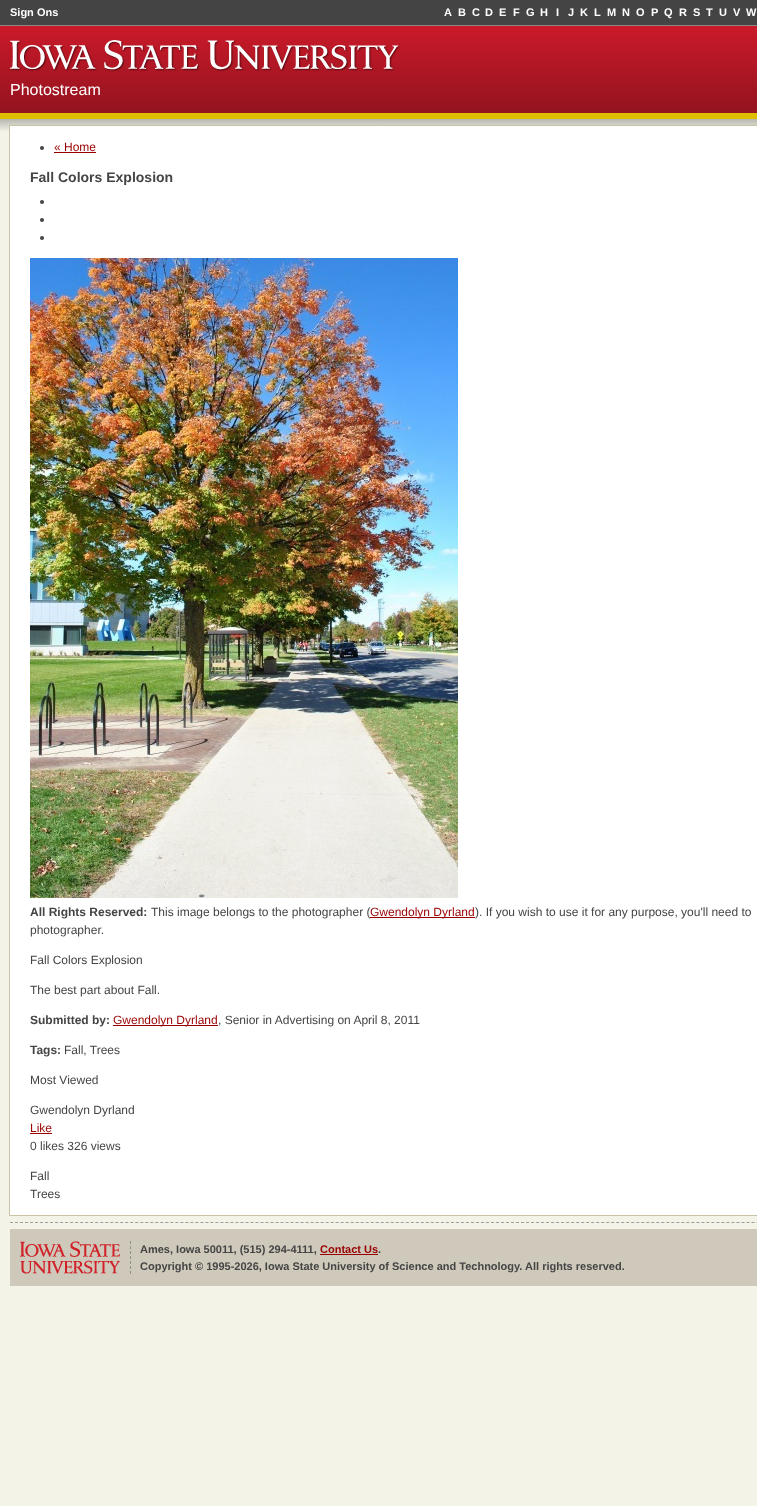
<!DOCTYPE html>
<meta charset="utf-8">
<style>body { margin: 0 } canvas { display: block }</style>
<canvas id="canvas" width="757" height="1506"></canvas>
<script type="module">
  const canvas = document.getElementById("canvas");
  const g = canvas.getContext("2d");
  g.miterLimit = 4;
  g.fontKerning = "normal";
  function drawText(s, x, y, [font, color]) {
    g.font = font;
    g.fillStyle = color;
    g.fillText(s, x, y);
  }
  function fillBox(x, y, w, h, color) {
    g.fillStyle = color;
    g.fillRect(x, y, w, h);
  }
  async function drawPicture(src, x, y, w, h) {
    const img = new Image();
    img.src = src;
    await img.decode();
    g.drawImage(img, x, y, w, h);
  }
  let gradient;

  const s1 = ["bold 11px Liberation Sans", "#FFFFFF"];
  const s2 = ["16px Liberation Sans", "#FFFFFF"];
  const s3 = ["12px Liberation Sans", "#990000"];
  const s4 = ["bold 14px Liberation Sans", "#444444"];
  const s5 = ["bold 12px Liberation Sans", "#444444"];
  const s6 = ["12px Liberation Sans", "#444444"];
  const s7 = ["bold 11px Liberation Sans", "#444444"];
  const s8 = ["bold 11px Liberation Sans", "#990000"];

  fillBox(0, 0, 757, 1506, "#F4F3E8");
  await drawPicture("pic1.png", 0, 119, 757, 12);
  fillBox(0, 0, 757, 25, "#444444");
  drawText("Sign Ons", 10, 16, s1);
  drawText("A", 444, 16, s1);
  drawText("B", 458, 16, s1);
  drawText("C", 472, 16, s1);
  drawText("D", 485, 16, s1);
  drawText("E", 499, 16, s1);
  drawText("F", 513, 16, s1);
  drawText("G", 526, 16, s1);
  drawText("H", 540, 16, s1);
  drawText("I", 556, 16, s1);
  drawText("J", 568, 16, s1);
  drawText("K", 580, 16, s1);
  drawText("L", 594, 16, s1);
  drawText("M", 607, 16, s1);
  drawText("N", 622, 16, s1);
  drawText("O", 636, 16, s1);
  drawText("P", 651, 16, s1);
  drawText("Q", 664, 16, s1);
  drawText("R", 679, 16, s1);
  drawText("S", 693, 16, s1);
  drawText("T", 706, 16, s1);
  drawText("U", 719, 16, s1);
  drawText("V", 733, 16, s1);
  drawText("W", 746, 16, s1);
  gradient = g.createLinearGradient(490, 26, 490, 113);
  gradient.addColorStop(0, "#CB1A2A");
  gradient.addColorStop(1, "#92131E");
  g.fillStyle = gradient;
  g.fillRect(0, 26, 757, 87);
  fillBox(0, 25, 757, 1, "#888888");
  fillBox(0, 113, 757, 6, "#DFBD00");
  await drawPicture("pic2.png", 10, 40, 390, 32);
  drawText("Photostream", 10, 95, s2);
  g.beginPath();
  g.rect(9.5, 125.5, 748, 1090);
  g.fill();
  g.strokeStyle = "#C8C2A7";
  g.stroke();
  g.fillStyle = "#444444";
  g.beginPath();
  g.arc(42, 148, 2, 0, Math.PI * 2);
  g.fill();
  drawText("« Home", 54, 151, s3);
  fillBox(54, 152, 42, 1, "#990000");
  drawText("Fall Colors Explosion", 30, 182, s4);
  g.beginPath();
  g.arc(42, 202, 2, 0, Math.PI * 2);
  g.fill();
  g.beginPath();
  g.arc(42, 220, 2, 0, Math.PI * 2);
  g.fill();
  g.beginPath();
  g.arc(42, 238, 2, 0, Math.PI * 2);
  g.fill();
  await drawPicture("pic3.png", 30, 258, 428, 640);
  drawText("All Rights Reserved:", 30, 916, s5);
  drawText("This image belongs to the photographer (", 151, 916, s6);
  fillBox(370, 917, 105, 1, "#990000");
  drawText("Gwendolyn Dyrland", 370, 916, s3);
  drawText("). If you wish to use it for any purpose, you'll need to", 475, 916, s6);
  drawText("photographer.", 30, 934, s6);
  drawText("Fall Colors Explosion", 30, 964, s6);
  drawText("The best part about Fall.", 30, 994, s6);
  drawText("Submitted by:", 30, 1024, s5);
  fillBox(113, 1025, 105, 1, "#990000");
  drawText("Gwendolyn Dyrland", 113, 1024, s3);
  drawText(", Senior in Advertising on April 8, 2011", 218, 1024, s6);
  drawText("Tags:", 30, 1054, s5);
  drawText("Fall, Trees", 64, 1054, s6);
  drawText("Most Viewed", 30, 1084, s6);
  drawText("Gwendolyn Dyrland", 30, 1114, s6);
  drawText("Like", 30, 1132, s3);
  fillBox(30, 1133, 22, 1, "#990000");
  drawText("0 likes 326 views", 30, 1150, s6);
  drawText("Fall", 30, 1180, s6);
  drawText("Trees", 30, 1198, s6);
  g.beginPath();
  g.moveTo(10, 1222.5);
  g.lineTo(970, 1222.5);
  g.strokeStyle = "#9D9D9D";
  g.setLineDash([3, 2.01]);
  g.stroke();
  fillBox(10, 1229, 747, 57, "#CEC9BB");
  g.beginPath();
  g.moveTo(130.5, 1241);
  g.lineTo(130.5, 1274);
  g.strokeStyle = "#939086";
  g.setLineDash([3, 2]);
  g.stroke();
  await drawPicture("pic4.png", 20, 1241, 100, 33);
  drawText("Ames, Iowa 50011, (515) 294-4111,", 140, 1253, s7);
  drawText("Contact Us", 320, 1253, s8);
  fillBox(320, 1254, 58, 1, "#990000");
  drawText(".", 378, 1253, s7);
  drawText("Copyright © 1995-2026, Iowa State University of Science and Technology. All rights reserved.", 140, 1270, s7);
</script>
